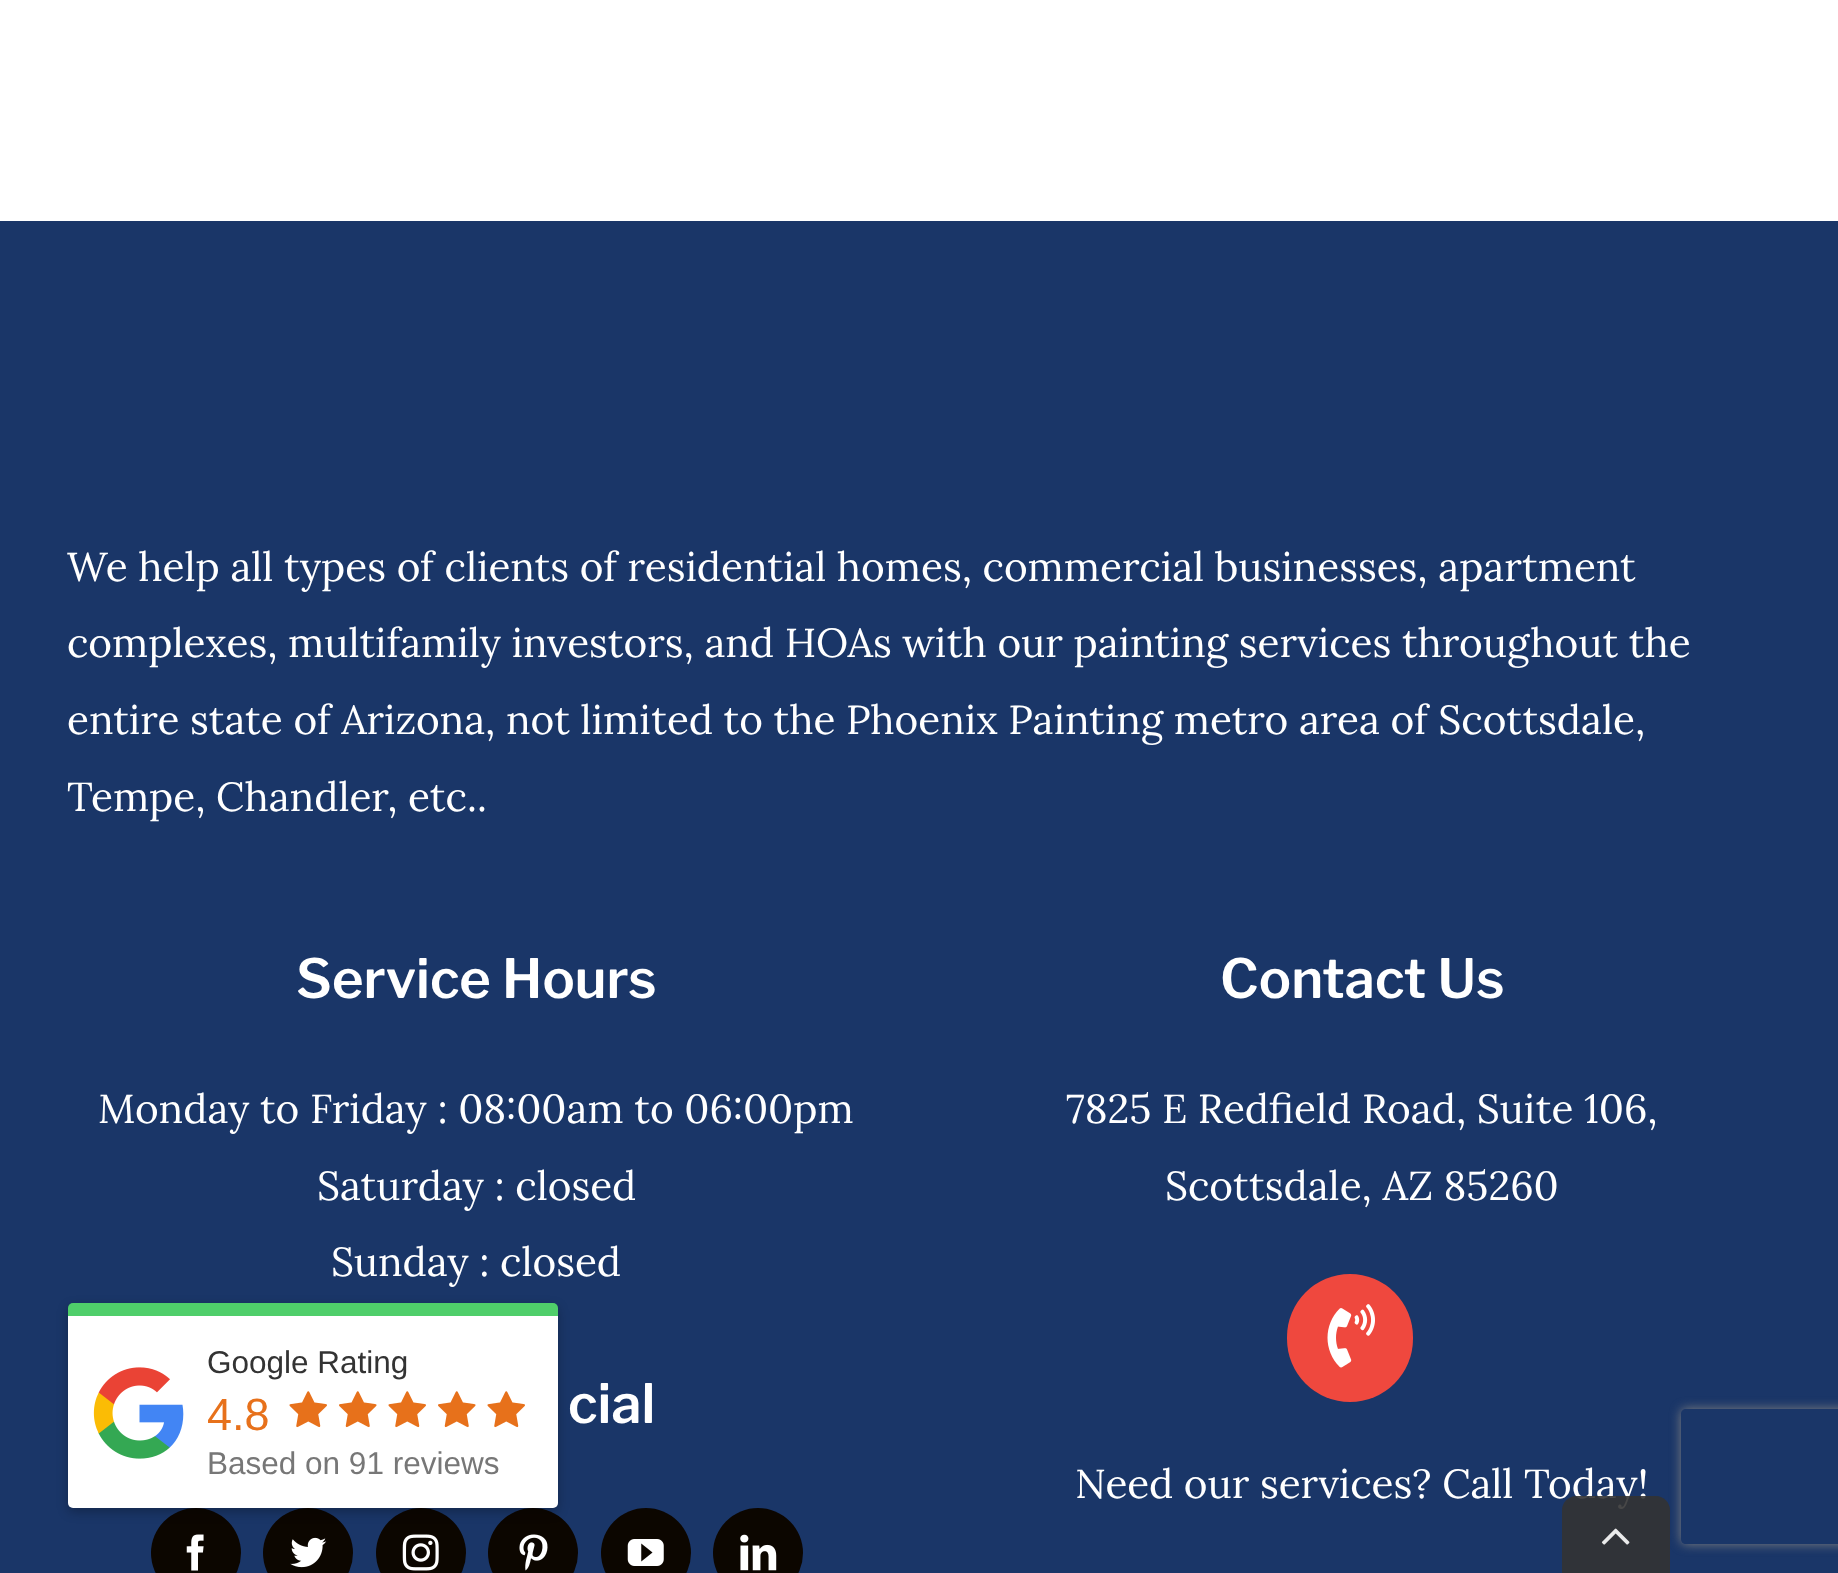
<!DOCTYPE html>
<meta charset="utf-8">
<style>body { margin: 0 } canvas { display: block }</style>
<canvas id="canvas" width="1838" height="1573"></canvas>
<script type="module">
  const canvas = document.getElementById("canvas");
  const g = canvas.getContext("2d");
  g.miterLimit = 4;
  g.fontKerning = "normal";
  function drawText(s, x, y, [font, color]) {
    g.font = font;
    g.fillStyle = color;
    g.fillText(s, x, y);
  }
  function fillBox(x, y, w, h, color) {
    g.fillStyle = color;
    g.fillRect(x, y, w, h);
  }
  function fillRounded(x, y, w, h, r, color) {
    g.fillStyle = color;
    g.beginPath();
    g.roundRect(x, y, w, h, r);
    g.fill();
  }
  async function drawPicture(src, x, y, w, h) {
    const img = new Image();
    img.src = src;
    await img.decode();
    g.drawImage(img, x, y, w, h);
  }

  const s1 = ["40.5px Lora", "#FFFFFF"];
  const s2 = ["600 54px Libre Franklin", "#FFFFFF"];
  const s3 = ["31.5px Liberation Sans", "#333333"];
  const s4 = ["45px Liberation Sans", "#E7711B"];
  const s5 = ["31.5px Liberation Sans", "#777777"];

  fillBox(0, 0, 1838, 1573, "#FFFFFF");
  fillBox(0, 221, 1838, 1352, "#1A3668");
  drawText("We help all types of clients of residential homes, commercial businesses, apartment", 67, 581, s1);
  drawText("complexes, multifamily investors, and HOAs with our painting services throughout the", 67, 657, s1);
  drawText("entire state of Arizona, not limited to the Phoenix Painting metro area of Scottsdale,", 67, 734, s1);
  drawText("Tempe, Chandler, etc..", 67, 811, s1);
  drawText("Service Hours", 296, 998, s2);
  drawText("Monday to Friday : 08:00am to 06:00pm", 98, 1123, s1);
  drawText("Saturday : closed", 317, 1200, s1);
  drawText("Sunday : closed", 331, 1276, s1);
  drawText("cial", 568, 1423, s2);
  g.fillStyle = "#0C0600";
  g.beginPath();
  g.arc(196, 1553, 45, 0, Math.PI * 2);
  g.fill();
  await drawPicture("pic1.png", 186, 1534, 18, 37);
  g.beginPath();
  g.arc(308, 1553, 45, 0, Math.PI * 2);
  g.fill();
  await drawPicture("pic2.png", 290, 1537, 37, 31);
  g.beginPath();
  g.arc(421, 1553, 45, 0, Math.PI * 2);
  g.fill();
  await drawPicture("pic3.png", 402, 1534, 37, 37);
  g.beginPath();
  g.arc(533, 1553, 45, 0, Math.PI * 2);
  g.fill();
  await drawPicture("pic4.png", 519, 1534, 29, 37);
  g.beginPath();
  g.arc(646, 1553, 45, 0, Math.PI * 2);
  g.fill();
  await drawPicture("pic5.png", 627, 1539, 37, 27);
  g.beginPath();
  g.arc(758, 1553, 45, 0, Math.PI * 2);
  g.fill();
  await drawPicture("pic6.png", 740, 1534, 37, 37);
  drawText("Contact Us", 1220, 998, s2);
  drawText("7825 E Redfield Road, Suite 106,", 1066, 1123, s1);
  drawText("Scottsdale, AZ 85260", 1165, 1200, s1);
  fillRounded(1287, 1274, 126, 128, 63, "#EF483E");
  await drawPicture("pic7.png", 1327, 1304, 48, 64);
  drawText("Need our services? Call Today!", 1075, 1498, s1);
  g.fillStyle = "rgba(0, 0, 0, 0.26)";
  g.filter = "blur(5.5px)";
  g.beginPath();
  g.roundRect(68, 1307, 490, 205, 5);
  g.fill();
  g.filter = "none";
  g.fillStyle = "#4FCE6A";
  g.beginPath();
  g.roundRect(68, 1303, 490, 13, [5, 5, 0, 0]);
  g.fill();
  g.fillStyle = "#FFFFFF";
  g.beginPath();
  g.roundRect(68, 1316, 490, 192, [0, 0, 5, 5]);
  g.fill();
  await drawPicture("pic8.png", 93, 1367, 91, 92);
  drawText("Google Rating", 207, 1373, s3);
  drawText("4.8", 207, 1430, s4);
  await drawPicture("pic9.png", 289, 1391, 38, 37);
  await drawPicture("pic10.png", 339, 1391, 38, 37);
  await drawPicture("pic9.png", 388, 1391, 38, 37);
  await drawPicture("pic10.png", 438, 1391, 38, 37);
  await drawPicture("pic9.png", 487, 1391, 38, 37);
  drawText("Based on 91 reviews", 207, 1474, s5);
  g.save();
  g.beginPath();
  g.moveTo(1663, 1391);
  g.lineTo(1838, 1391);
  g.lineTo(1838, 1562);
  g.lineTo(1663, 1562);
  g.closePath();
  g.moveTo(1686, 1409);
  g.lineTo(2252, 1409);
  g.bezierCurveTo(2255, 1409, 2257, 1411, 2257, 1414);
  g.lineTo(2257, 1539);
  g.bezierCurveTo(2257, 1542, 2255, 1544, 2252, 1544);
  g.lineTo(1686, 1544);
  g.bezierCurveTo(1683, 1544, 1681, 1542, 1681, 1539);
  g.lineTo(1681, 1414);
  g.bezierCurveTo(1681, 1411, 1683, 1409, 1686, 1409);
  g.closePath();
  g.clip("evenodd");
  g.fillStyle = "#808080";
  g.filter = "blur(5.5px)";
  g.beginPath();
  g.roundRect(1681, 1409, 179, 135, 5);
  g.fill();
  g.filter = "none";
  g.restore();
  g.fillStyle = "rgba(51, 51, 51, 0.9)";
  g.beginPath();
  g.moveTo(1576, 1496);
  g.lineTo(1656, 1496);
  g.bezierCurveTo(1663.5, 1496, 1670, 1502.5, 1670, 1510);
  g.lineTo(1670, 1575);
  g.lineTo(1562, 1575);
  g.lineTo(1562, 1510);
  g.bezierCurveTo(1562, 1502.5, 1568.5, 1496, 1576, 1496);
  g.closePath();
  g.fill();
  await drawPicture("pic11.png", 1601, 1528, 29, 17);
</script>
